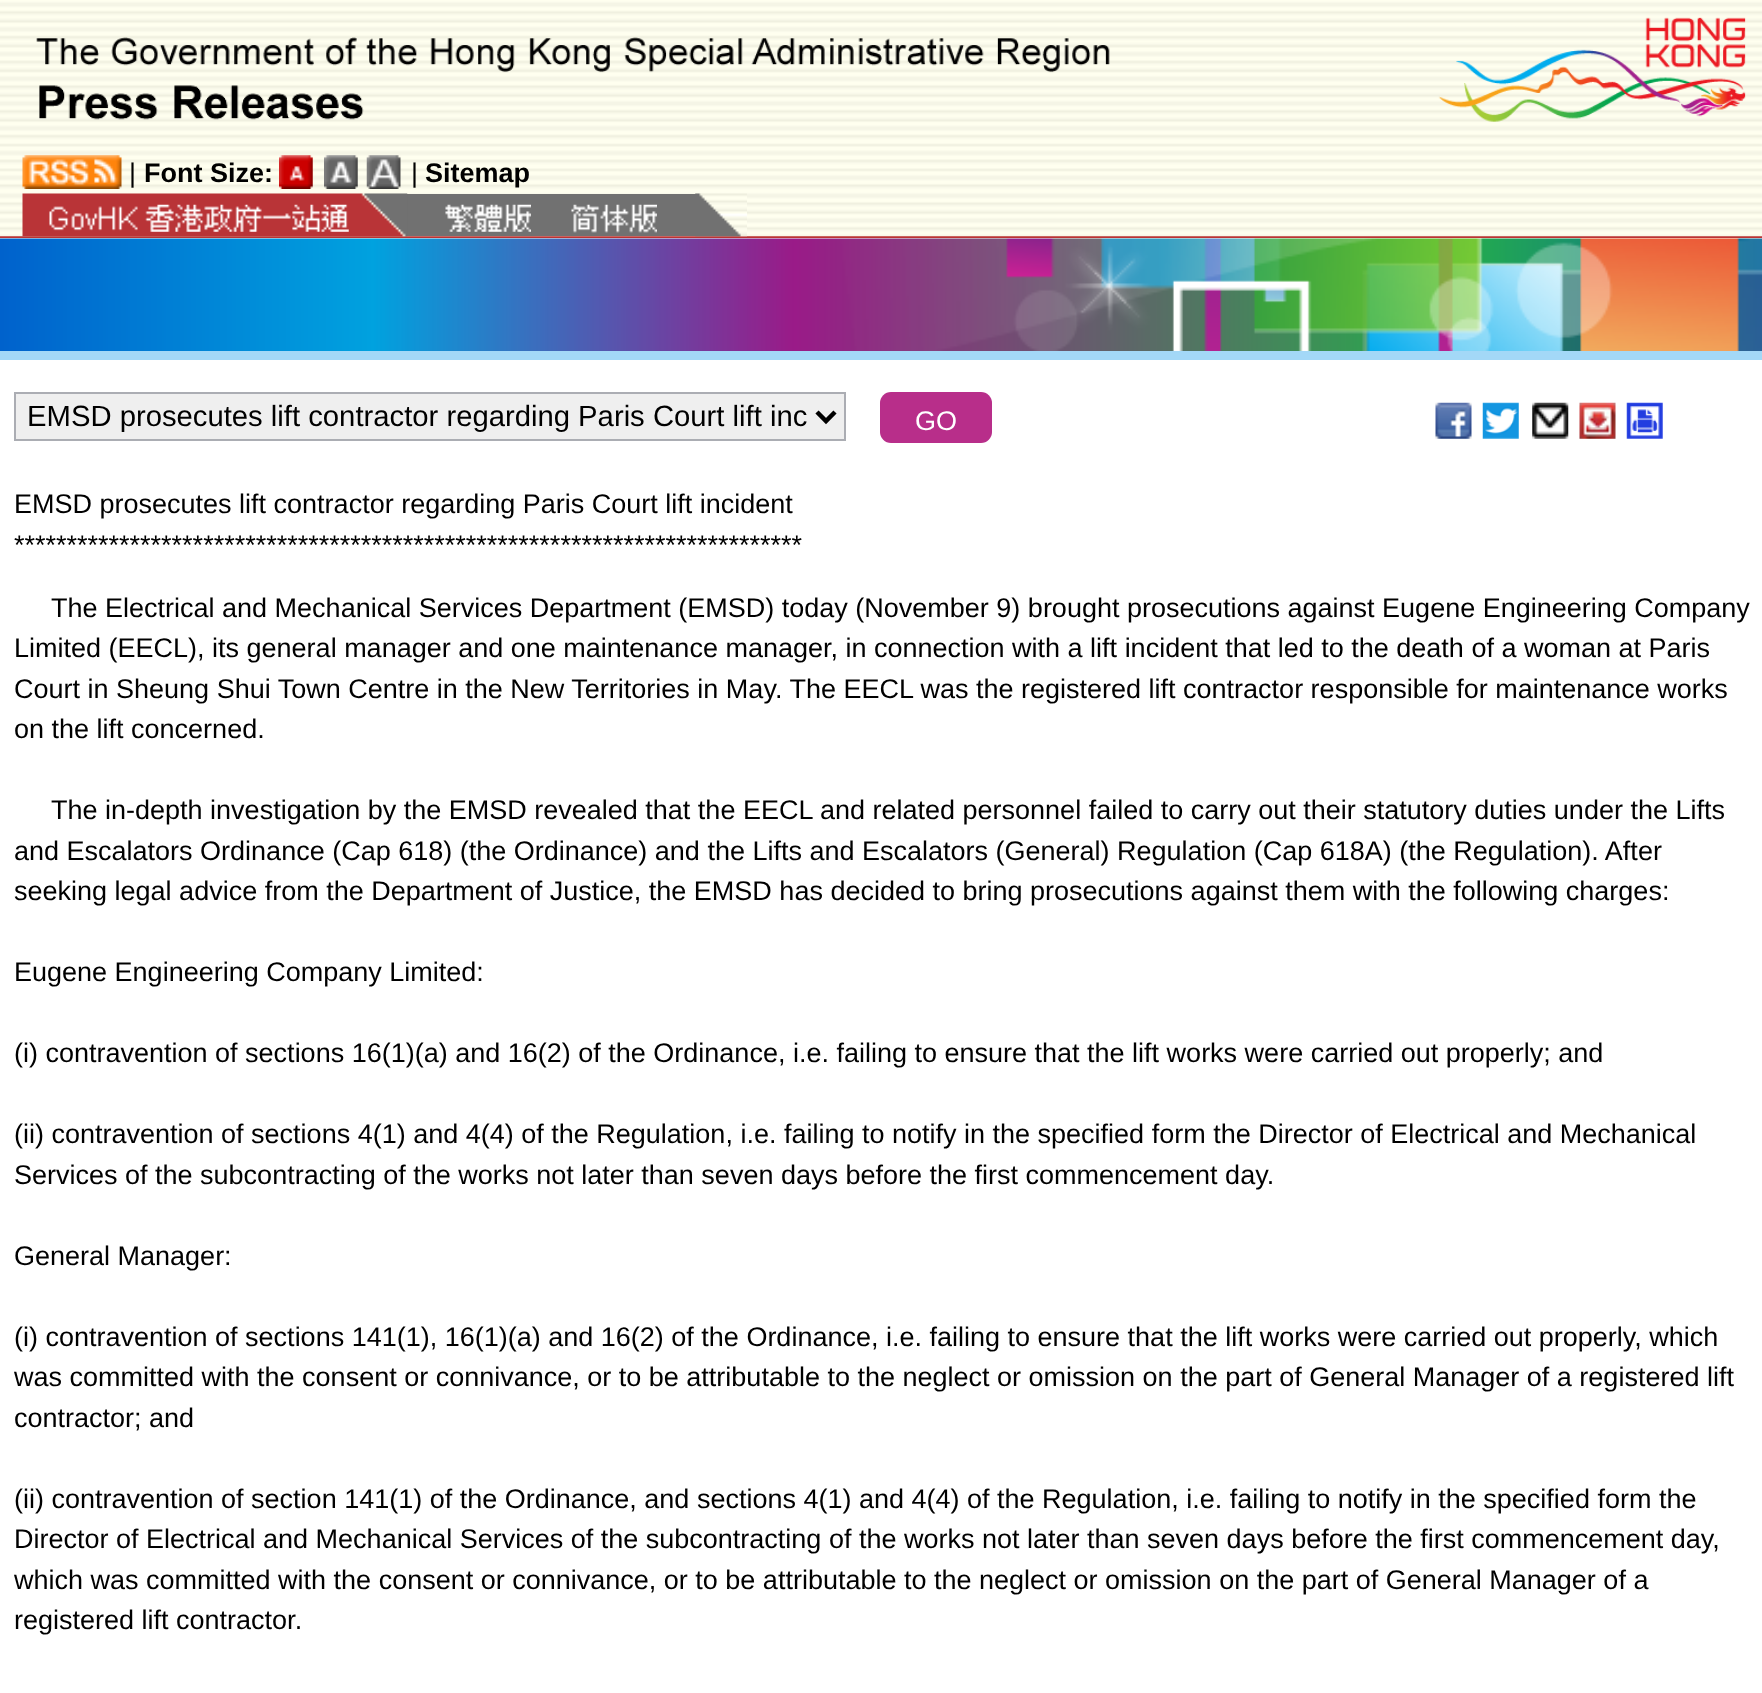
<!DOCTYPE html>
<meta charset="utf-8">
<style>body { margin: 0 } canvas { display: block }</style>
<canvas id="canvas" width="1762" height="1693"></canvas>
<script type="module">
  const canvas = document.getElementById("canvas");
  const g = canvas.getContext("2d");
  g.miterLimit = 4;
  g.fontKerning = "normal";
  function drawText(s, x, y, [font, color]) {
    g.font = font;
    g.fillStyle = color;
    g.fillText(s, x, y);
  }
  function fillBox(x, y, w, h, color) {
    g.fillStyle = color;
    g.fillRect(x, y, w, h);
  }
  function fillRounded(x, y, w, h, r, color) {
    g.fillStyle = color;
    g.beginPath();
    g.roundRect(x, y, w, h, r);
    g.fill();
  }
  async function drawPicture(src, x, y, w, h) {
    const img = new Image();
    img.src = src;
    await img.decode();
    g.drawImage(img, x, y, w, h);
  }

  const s1 = ["27px Liberation Sans", "#000000"];
  const s2 = ["bold 27px Liberation Sans", "#000000"];
  const s3 = ["29.25px Liberation Sans", "#000000"];
  const s4 = ["27px Liberation Sans", "#FFFFFF"];

  fillBox(0, 0, 1762, 1693, "#FFFFFF");
  await drawPicture("pic1.png", 0, 0, 1762, 239);
  fillBox(0, 237, 1762, 1, "#BB3333");
  fillBox(0, 236, 1762, 1, "#C9635F");
  await drawPicture("pic2.png", 36, 37, 1074, 83);
  await drawPicture("pic3.png", 1438, 17, 308, 105);
  await drawPicture("pic4.png", 22, 155, 100, 34);
  drawText("|", 129, 182, s1);
  drawText("Font Size:", 144, 182, s2);
  await drawPicture("pic5.png", 279, 155, 34, 34);
  await drawPicture("pic6.png", 324, 155, 34, 34);
  await drawPicture("pic7.png", 366, 155, 35, 34);
  drawText("|", 411, 182, s1);
  drawText("Sitemap", 425, 182, s2);
  fillBox(407, 194, 289, 42, "#717171");
  await drawPicture("pic8.png", 22, 193, 386, 44);
  await drawPicture("pic9.png", 49, 204, 300, 28);
  await drawPicture("pic10.png", 445, 204, 86, 28);
  await drawPicture("pic11.png", 695, 193, 52, 44);
  await drawPicture("pic12.png", 571, 204, 86, 29);
  await drawPicture("pic13.png", 0, 238, 1762, 113);
  fillBox(0, 351, 1762, 9, "#A3D8F7");
  g.fillStyle = "#EFEFEF";
  g.beginPath();
  g.rect(15, 393, 830, 47);
  g.fill();
  g.strokeStyle = "#ABADB3";
  g.lineWidth = 2;
  g.stroke();
  g.beginPath();
  g.moveTo(817, 412);
  g.lineTo(826, 421);
  g.lineTo(835, 412);
  g.strokeStyle = "#000000";
  g.lineWidth = 4.5;
  g.stroke();
  drawText("EMSD prosecutes lift contractor regarding Paris Court lift inc", 27, 426, s3);
  fillRounded(880, 392, 112, 51, 11, "#B82E8A");
  drawText("GO", 915, 430, s4);
  await drawPicture("pic14.png", 1435, 402, 37, 37);
  await drawPicture("pic15.png", 1482, 402, 37, 37);
  await drawPicture("pic16.png", 1532, 402, 37, 37);
  await drawPicture("pic17.png", 1579, 402, 37, 37);
  await drawPicture("pic18.png", 1626, 402, 37, 37);
  drawText("EMSD prosecutes lift contractor regarding Paris Court lift incident", 14, 513, s1);
  drawText("*********************************************************************", 14, 554, s1);
  drawText("******", 739, 554, s1);
  drawText("The Electrical and Mechanical Services Department (EMSD) today (November 9) brought prosecutions against Eugene Engineering Company", 51, 617, s1);
  drawText("Limited (EECL), its general manager and one maintenance manager, in connection with a lift incident that led to the death of a woman at Paris", 14, 657, s1);
  drawText("Court in Sheung Shui Town Centre in the New Territories in May. The EECL was the registered lift contractor responsible for maintenance works", 14, 698, s1);
  drawText("on the lift concerned.", 14, 738, s1);
  drawText("The in-depth investigation by the EMSD revealed that the EECL and related personnel failed to carry out their statutory duties under the Lifts", 51, 819, s1);
  drawText("and Escalators Ordinance (Cap 618) (the Ordinance) and the Lifts and Escalators (General) Regulation (Cap 618A) (the Regulation). After", 14, 860, s1);
  drawText("seeking legal advice from the Department of Justice, the EMSD has decided to bring prosecutions against them with the following charges:", 14, 900, s1);
  drawText("Eugene Engineering Company Limited:", 14, 981, s1);
  drawText("(i) contravention of sections 16(1)(a) and 16(2) of the Ordinance, i.e. failing to ensure that the lift works were carried out properly; and", 14, 1062, s1);
  drawText("(ii) contravention of sections 4(1) and 4(4) of the Regulation, i.e. failing to notify in the specified form the Director of Electrical and Mechanical", 14, 1143, s1);
  drawText("Services of the subcontracting of the works not later than seven days before the first commencement day.", 14, 1184, s1);
  drawText("General Manager:", 14, 1265, s1);
  drawText("(i) contravention of sections 141(1), 16(1)(a) and 16(2) of the Ordinance, i.e. failing to ensure that the lift works were carried out properly, which", 14, 1346, s1);
  g.save();
  g.beginPath();
  g.rect(14, 392, 1737, 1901);
  g.clip();
  drawText("was committed with the consent or connivance, or to be attributable to the neglect or omission on the part of General Manager of a registered lift", 14, 1386, s1);
  g.restore();
  drawText("contractor; and", 14, 1427, s1);
  drawText("(ii) contravention of section 141(1) of the Ordinance, and sections 4(1) and 4(4) of the Regulation, i.e. failing to notify in the specified form the", 14, 1508, s1);
  drawText("Director of Electrical and Mechanical Services of the subcontracting of the works not later than seven days before the first commencement day,", 14, 1548, s1);
  g.save();
  g.beginPath();
  g.rect(14, 392, 1737, 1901);
  g.clip();
  drawText("which was committed with the consent or connivance, or to be attributable to the neglect or omission on the part of General Manager of a", 14, 1589, s1);
  g.restore();
  drawText("registered lift contractor.", 14, 1629, s1);
</script>
